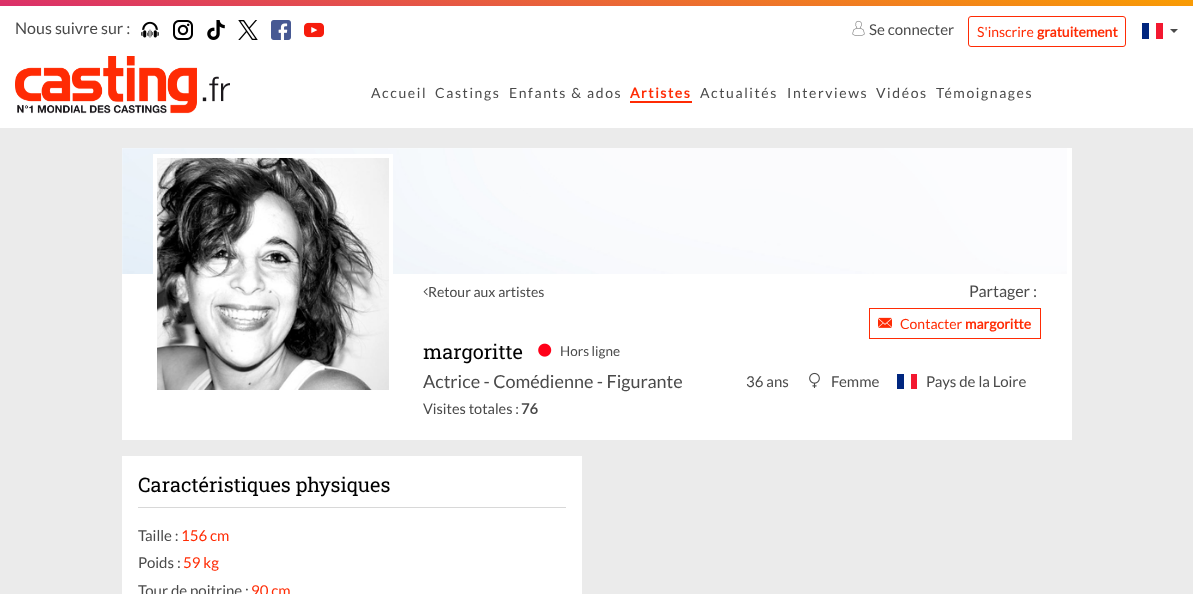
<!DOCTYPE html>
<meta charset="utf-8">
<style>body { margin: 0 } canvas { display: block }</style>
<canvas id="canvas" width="1193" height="594"></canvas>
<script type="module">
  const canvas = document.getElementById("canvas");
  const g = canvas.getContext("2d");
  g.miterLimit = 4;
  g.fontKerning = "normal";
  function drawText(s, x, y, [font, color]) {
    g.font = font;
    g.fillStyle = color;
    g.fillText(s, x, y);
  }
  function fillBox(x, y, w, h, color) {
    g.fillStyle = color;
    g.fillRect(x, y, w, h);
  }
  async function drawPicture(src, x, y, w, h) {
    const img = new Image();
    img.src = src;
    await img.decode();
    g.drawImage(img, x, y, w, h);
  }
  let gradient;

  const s1 = ["16px Lato", "#4A4A4A"];
  const s2 = ["15px Lato", "#4A4A4A"];
  const s3 = ["14px Lato", "#FF2B04"];
  const s4 = ["bold 14px Lato", "#FF2B04"];
  const s5 = ["14px Lato", "#4A4A4A"];
  const s6 = ["20px Roboto Slab", "#000000"];
  const s7 = ["13.5px Lato", "#4A4A4A"];
  const s8 = ["18px Lato", "#4A4A4A"];
  const s9 = ["14.5px Lato", "#4A4A4A"];
  const s10 = ["bold 14.5px Lato", "#4A4A4A"];
  const s11 = ["15px Lato", "#FF2B04"];

  fillBox(0, 0, 1193, 594, "#EBEBEB");
  fillBox(0, 6, 1193, 122, "#FFFFFF");
  gradient = g.createLinearGradient(606, -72, 587, 78);
  gradient.addColorStop(0, "#F99C04");
  gradient.addColorStop(1, "#DB3069");
  g.fillStyle = gradient;
  g.fillRect(0, 0, 1193, 6);
  drawText("Nous suivre sur :", 15, 34, s1);
  await drawPicture("pic1.png", 141, 21, 18, 17);
  await drawPicture("pic2.png", 173, 20, 20, 20);
  await drawPicture("pic3.png", 207, 20, 18, 20);
  await drawPicture("pic4.png", 238, 20, 20, 20);
  await drawPicture("pic5.png", 271, 20, 20, 20);
  await drawPicture("pic6.png", 304, 22, 20, 16);
  await drawPicture("pic7.png", 852, 20, 13, 16);
  drawText("Se connecter", 869, 35, s2);
  g.beginPath();
  g.roundRect(968.5, 16.5, 157, 30, 2.5);
  g.strokeStyle = "#FF2B04";
  g.stroke();
  drawText("S'inscrire", 977, 37, s3);
  drawText("gratuitement", 1037, 37, s4);
  fillBox(1142, 23, 7, 16, "#00267F");
  fillBox(1156, 23, 7, 16, "#F31830");
  g.fillStyle = "#4A4A4A";
  g.beginPath();
  g.moveTo(1170, 29);
  g.lineTo(1178, 29);
  g.lineTo(1174, 33);
  g.closePath();
  g.fill();
  await drawPicture("pic8.png", 15, 56, 215, 58);
  g.letterSpacing = "1.6px";
  drawText("Accueil", 371, 98, s5);
  drawText("Castings", 435, 98, s5);
  drawText("Enfants & ados", 509, 98, s5);
  drawText("Artistes", 630, 98, s4);
  fillBox(630, 101, 62, 2, "#FF2B04");
  drawText("Actualités", 700, 98, s5);
  drawText("Interviews", 787, 98, s5);
  drawText("Vidéos", 876, 98, s5);
  drawText("Témoignages", 936, 98, s5);
  fillBox(122, 148, 950, 292, "#FFFFFF");
  await drawPicture("pic9.png", 122, 148, 945, 126);
  g.strokeStyle = "#FFFFFF";
  g.lineWidth = 4;
  g.strokeRect(155, 156, 236, 236);
  await drawPicture("pic10.png", 157, 158, 232, 232);
  await drawPicture("pic11.png", 423, 288, 5, 8);
  g.letterSpacing = "0px";
  drawText("Retour aux artistes", 428, 297, s5);
  drawText("Partager :", 969, 297, s1);
  g.strokeStyle = "#FF2B04";
  g.lineWidth = 1;
  g.strokeRect(869.5, 308.5, 171, 30);
  await drawPicture("pic12.png", 878, 317, 14, 11);
  drawText("Contacter", 900, 329, s3);
  drawText("margoritte", 965, 329, s4);
  drawText("margoritte", 423, 359, s6);
  await drawPicture("pic13.png", 538, 343, 14, 14);
  drawText("Hors ligne", 560, 356, s7);
  drawText("Actrice - Comédienne - Figurante", 423, 388, s8);
  drawText("36 ans", 746, 387, s2);
  await drawPicture("pic14.png", 809, 372, 11, 16);
  drawText("Femme", 831, 387, s2);
  fillBox(897, 374, 7, 15, "#00267F");
  fillBox(911, 374, 6, 15, "#F31830");
  drawText("Pays de la Loire", 926, 387, s2);
  drawText("Visites totales :", 423, 414, s9);
  drawText("76", 521, 414, s10);
  fillBox(122, 456, 460, 138, "#FFFFFF");
  drawText("Caractéristiques physiques", 138, 492, s6);
  fillBox(138, 507, 428, 1, "#D8D8D8");
  drawText("Taille :", 138, 541, s2);
  drawText("156 cm", 181, 541, s11);
  drawText("Poids :", 138, 568, s2);
  drawText("59 kg", 183, 568, s11);
  drawText("Tour de poitrine :", 138, 596, s2);
  drawText("90 cm", 251, 596, s11);
</script>
